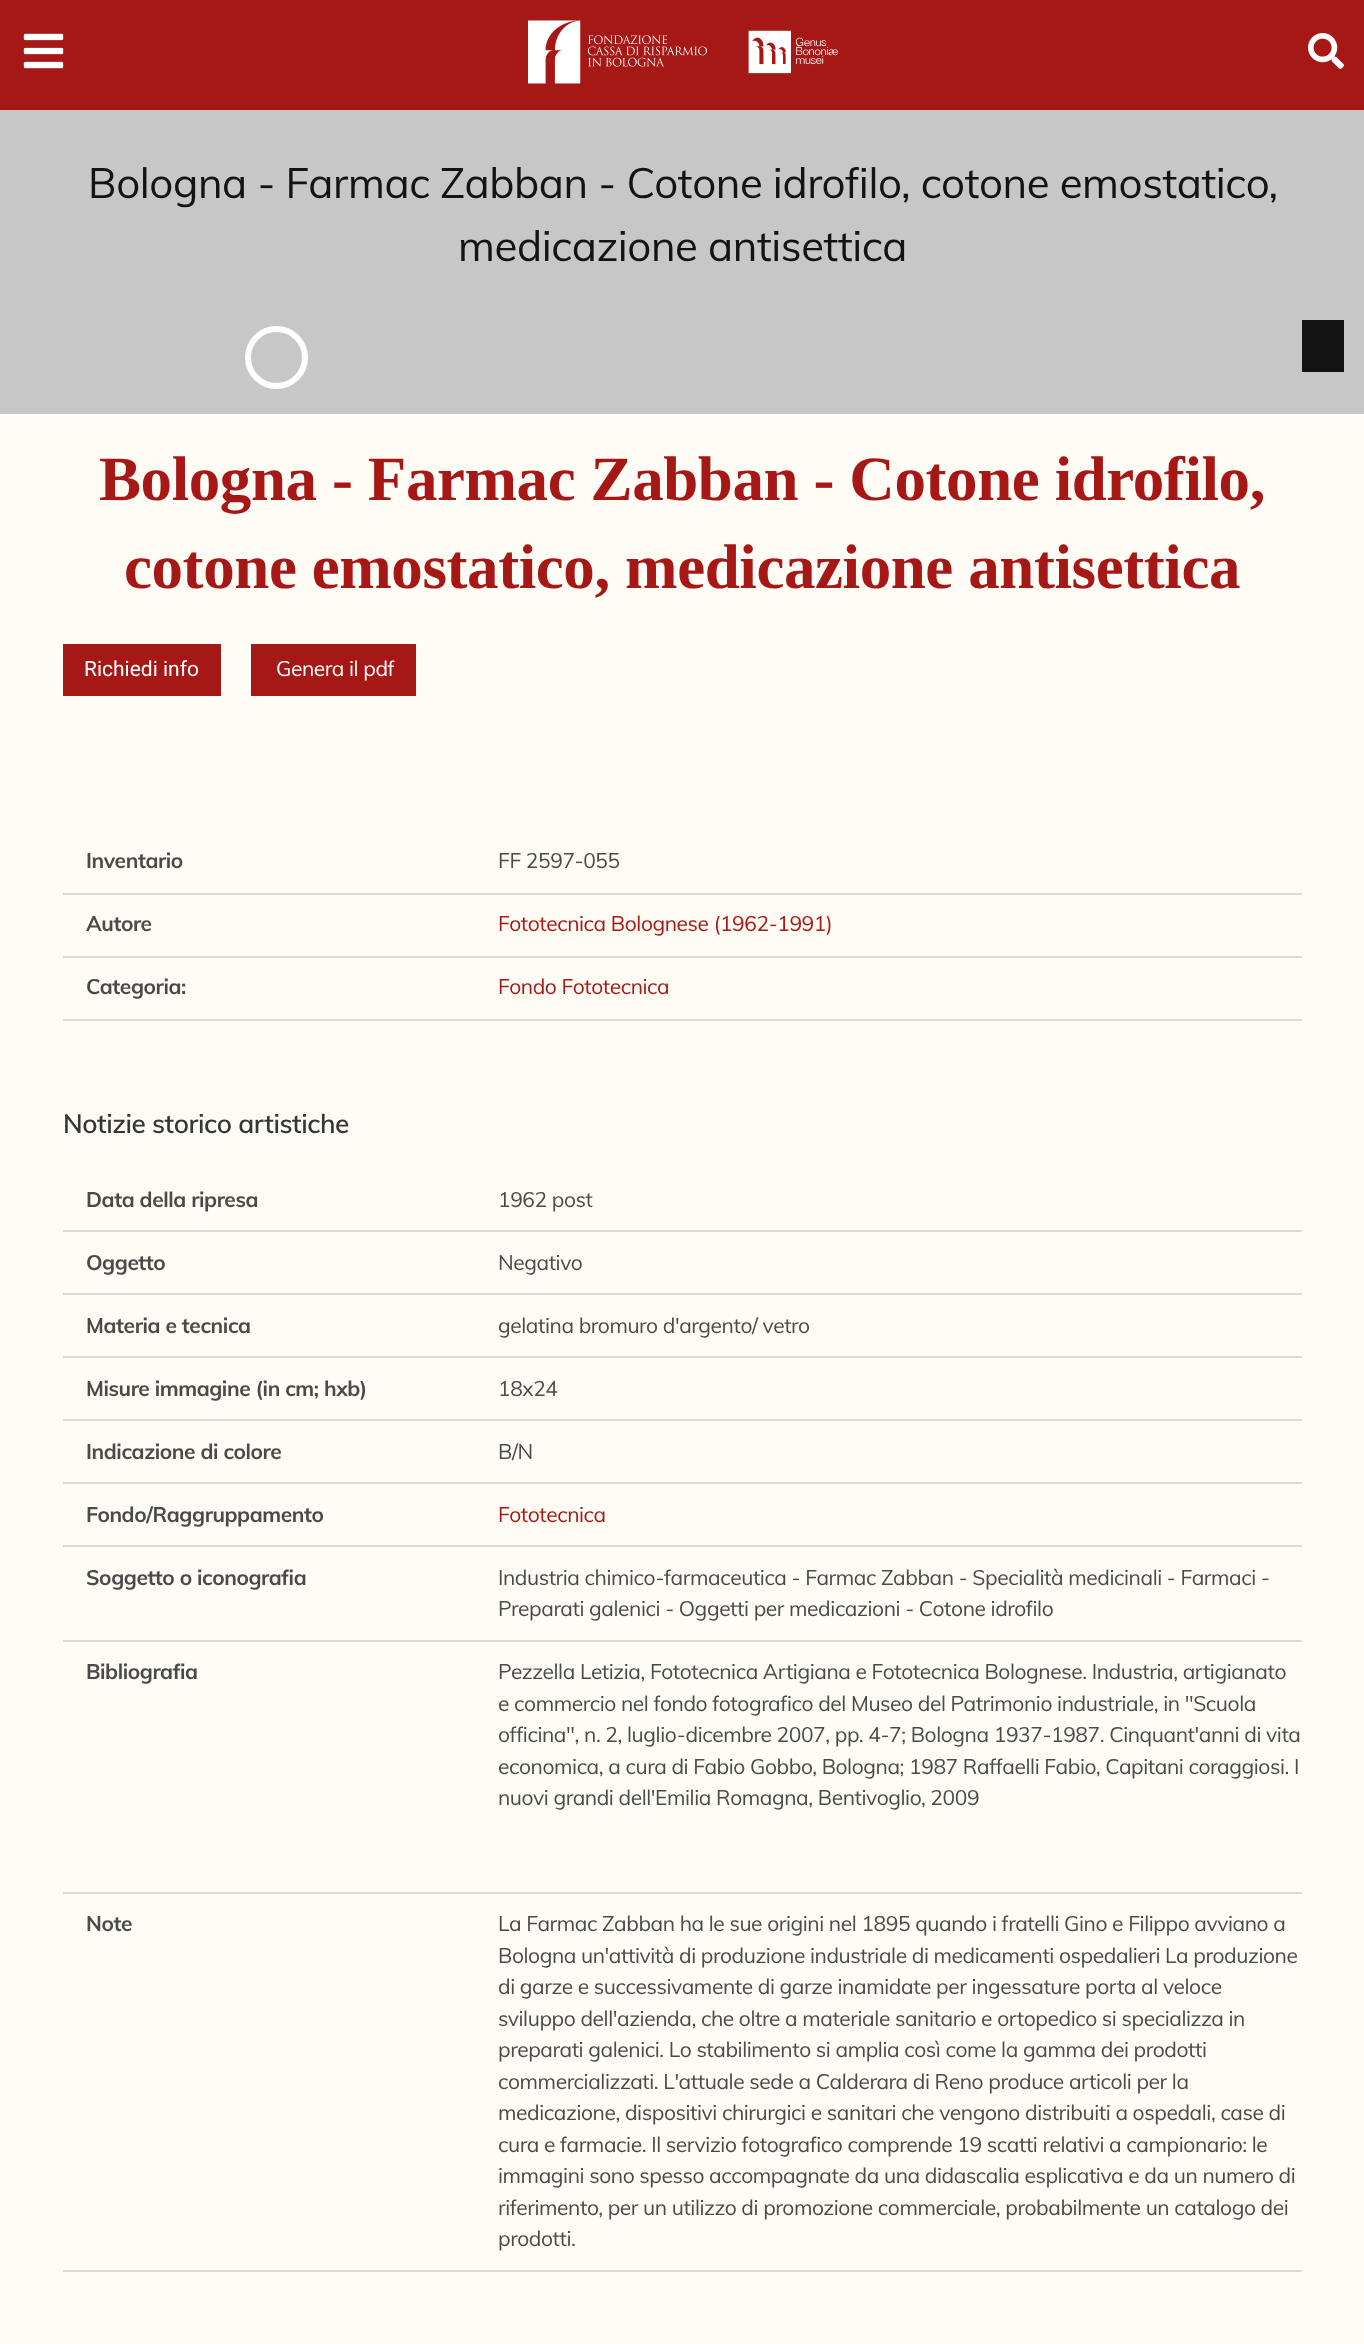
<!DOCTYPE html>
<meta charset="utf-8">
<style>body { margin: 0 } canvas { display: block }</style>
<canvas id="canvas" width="1364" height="2344"></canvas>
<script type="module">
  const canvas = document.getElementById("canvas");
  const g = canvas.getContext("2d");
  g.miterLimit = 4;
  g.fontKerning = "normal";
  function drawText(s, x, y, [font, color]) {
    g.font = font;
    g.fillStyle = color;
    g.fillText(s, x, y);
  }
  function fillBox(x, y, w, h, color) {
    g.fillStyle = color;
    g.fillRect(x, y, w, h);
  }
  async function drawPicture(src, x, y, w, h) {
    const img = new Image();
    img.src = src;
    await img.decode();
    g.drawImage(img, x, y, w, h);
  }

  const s1 = ["42px Muli", "#131313"];
  const s2 = ["bold 63px Liberation Serif", "#A61816"];
  const s3 = ["21px Roboto", "#FFFFFF"];
  const s4 = ["21px Muli", "#FFFFFF"];
  const s5 = ["bold 21px Muli", "#4A4A4A"];
  const s6 = ["21px Muli", "#4A4A4A"];
  const s7 = ["21px Muli", "#A61816"];
  const s8 = ["600 26.25px Muli", "#363636"];

  fillBox(0, 0, 1364, 2344, "#FFFCF5");
  fillBox(0, 0, 1364, 110, "#A61816");
  await drawPicture("pic1.png", 23, 33, 41, 36);
  await drawPicture("pic2.png", 528, 20, 179, 64);
  await drawPicture("pic3.png", 748, 30, 90, 44);
  await drawPicture("pic4.png", 1308, 33, 36, 36);
  fillBox(0, 110, 1364, 304, "#C7C7C7");
  g.letterSpacing = "-0.42px";
  drawText("Bologna - Farmac Zabban - Cotone idrofilo, cotone emostatico,", 88, 198, s1);
  drawText("medicazione antisettica", 458, 261, s1);
  g.beginPath();
  g.arc(276.5, 357.5, 28.5, 0, Math.PI * 2);
  g.strokeStyle = "#FFFFFF";
  g.lineWidth = 6;
  g.stroke();
  fillBox(1302, 320, 42, 52, "#131313");
  drawText("Bologna - Farmac Zabban - Cotone idrofilo,", 99, 500, s2);
  drawText("cotone emostatico, medicazione antisettica", 124, 588, s2);
  fillBox(63, 644, 158, 52, "#A61816");
  g.letterSpacing = "0px";
  drawText("Richiedi info", 84, 676, s3);
  fillBox(251, 644, 165, 52, "#A61816");
  g.letterSpacing = "-0.42px";
  drawText("Genera il pdf", 276, 676, s4);
  fillBox(63, 893, 1239, 2, "#DBDBDB");
  drawText("Inventario", 86, 868, s5);
  drawText("FF 2597-055", 498, 868, s6);
  fillBox(63, 956, 1239, 2, "#DBDBDB");
  drawText("Autore", 86, 931, s5);
  drawText("Fototecnica Bolognese (1962-1991)", 498, 931, s7);
  fillBox(63, 1019, 1239, 2, "#DBDBDB");
  drawText("Categoria:", 86, 994, s5);
  drawText("Fondo Fototecnica", 498, 994, s7);
  drawText("Notizie storico artistiche", 63, 1133, s8);
  fillBox(63, 1230, 1239, 2, "#DBDBDB");
  drawText("Data della ripresa", 86, 1207, s5);
  drawText("1962 post", 498, 1207, s6);
  fillBox(63, 1293, 1239, 2, "#DBDBDB");
  drawText("Oggetto", 86, 1270, s5);
  drawText("Negativo", 498, 1270, s6);
  fillBox(63, 1356, 1239, 2, "#DBDBDB");
  drawText("Materia e tecnica", 86, 1333, s5);
  drawText("gelatina bromuro d'argento/ vetro", 498, 1333, s6);
  fillBox(63, 1419, 1239, 2, "#DBDBDB");
  drawText("Misure immagine (in cm; hxb)", 86, 1396, s5);
  drawText("18x24", 498, 1396, s6);
  fillBox(63, 1482, 1239, 2, "#DBDBDB");
  drawText("Indicazione di colore", 86, 1459, s5);
  drawText("B/N", 498, 1459, s6);
  fillBox(63, 1545, 1239, 2, "#DBDBDB");
  drawText("Fondo/Raggruppamento", 86, 1522, s5);
  drawText("Fototecnica", 498, 1522, s7);
  fillBox(63, 1640, 1239, 2, "#DBDBDB");
  drawText("Soggetto o iconografia", 86, 1585, s5);
  drawText("Industria chimico-farmaceutica - Farmac Zabban - Specialità medicinali - Farmaci -", 498, 1585, s6);
  drawText("Preparati galenici - Oggetti per medicazioni - Cotone idrofilo", 498, 1616, s6);
  fillBox(63, 1892, 1239, 2, "#DBDBDB");
  drawText("Bibliografia", 86, 1679, s5);
  drawText("Pezzella Letizia, Fototecnica Artigiana e Fototecnica Bolognese. Industria, artigianato", 498, 1679, s6);
  drawText("e commercio nel fondo fotografico del Museo del Patrimonio industriale, in \"Scuola", 498, 1711, s6);
  drawText("officina\", n. 2, luglio-dicembre 2007, pp. 4-7; Bologna 1937-1987. Cinquant'anni di vita", 498, 1742, s6);
  drawText("economica, a cura di Fabio Gobbo, Bologna; 1987 Raffaelli Fabio, Capitani coraggiosi. I", 498, 1774, s6);
  drawText("nuovi grandi dell'Emilia Romagna, Bentivoglio, 2009", 498, 1805, s6);
  fillBox(63, 2270, 1239, 2, "#DBDBDB");
  drawText("Note", 86, 1931, s5);
  drawText("La Farmac Zabban ha le sue origini nel 1895 quando i fratelli Gino e Filippo avviano a", 498, 1931, s6);
  drawText("Bologna un'attività di produzione industriale di medicamenti ospedalieri La produzione", 498, 1963, s6);
  drawText("di garze e successivamente di garze inamidate per ingessature porta al veloce", 498, 1994, s6);
  drawText("sviluppo dell'azienda, che oltre a materiale sanitario e ortopedico si specializza in", 498, 2026, s6);
  drawText("preparati galenici. Lo stabilimento si amplia così come la gamma dei prodotti", 498, 2057, s6);
  drawText("commercializzati. L'attuale sede a Calderara di Reno produce articoli per la", 498, 2089, s6);
  drawText("medicazione, dispositivi chirurgici e sanitari che vengono distribuiti a ospedali, case di", 498, 2120, s6);
  drawText("cura e farmacie. Il servizio fotografico comprende 19 scatti relativi a campionario: le", 498, 2152, s6);
  drawText("immagini sono spesso accompagnate da una didascalia esplicativa e da un numero di", 498, 2183, s6);
  drawText("riferimento, per un utilizzo di promozione commerciale, probabilmente un catalogo dei", 498, 2215, s6);
  drawText("prodotti.", 498, 2246, s6);
</script>
